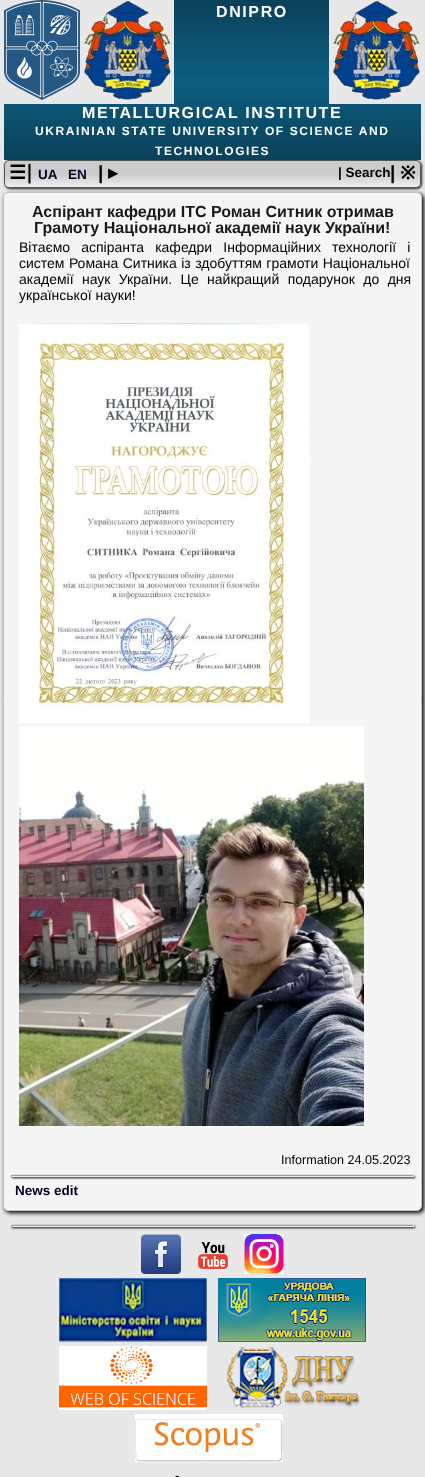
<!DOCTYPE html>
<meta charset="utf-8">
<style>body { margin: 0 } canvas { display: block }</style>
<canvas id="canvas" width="425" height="1477"></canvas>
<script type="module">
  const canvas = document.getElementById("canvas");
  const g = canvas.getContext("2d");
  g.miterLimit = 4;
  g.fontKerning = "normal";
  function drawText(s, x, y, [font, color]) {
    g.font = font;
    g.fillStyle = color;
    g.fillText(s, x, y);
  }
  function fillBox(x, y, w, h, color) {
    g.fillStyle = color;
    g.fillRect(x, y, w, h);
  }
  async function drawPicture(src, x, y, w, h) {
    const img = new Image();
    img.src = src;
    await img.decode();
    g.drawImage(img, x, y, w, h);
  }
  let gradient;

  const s1 = ["bold 16px Liberation Sans", "#FFFFFF"];
  const s2 = ["bold 12px Liberation Sans", "#FFFFFF"];
  const s3 = ["bold 19px DejaVu Sans", "#000000"];
  const s4 = ["bold 13.5px Liberation Sans", "#000022"];
  const s5 = ["bold 19px Liberation Sans", "#000000"];
  const s6 = ["bold 13.5px Liberation Sans", "#000000"];
  const s7 = ["bold 19px Noto Sans", "#000000"];
  const s8 = ["bold 16px Liberation Sans", "#1A1A1A"];
  const s9 = ["14px Liberation Sans", "#000000"];
  const s10 = ["12.6px Liberation Sans", "#000000"];
  const s11 = ["13.5px Liberation Sans", "#000000"];

  fillBox(0, 0, 425, 1477, "#E8E8E8");
  gradient = g.createLinearGradient(213, 0, 213, 160);
  gradient.addColorStop(0, "#0A415A");
  gradient.addColorStop(0.5, "#0E5D82");
  gradient.addColorStop(1, "#0A415A");
  g.fillStyle = gradient;
  g.fillRect(4, 0, 417, 160);
  fillBox(4, 0, 170, 104, "#E8E8E8");
  await drawPicture("pic1.png", 4, 0, 76, 100);
  fillBox(329, 0, 92, 104, "#E8E8E8");
  await drawPicture("pic2.png", 333, 1, 87, 99);
  await drawPicture("pic2.png", 84, 1, 87, 99);
  g.letterSpacing = "1.6px";
  drawText("DNIPRO", 216, 17, s1);
  drawText("METALLURGICAL INSTITUTE", 82, 118, s1);
  drawText("UKRAINIAN STATE UNIVERSITY OF SCIENCE AND", 35, 135, s2);
  drawText("TECHNOLOGIES", 155, 155, s2);
  g.fillStyle = "#222222";
  g.filter = "blur(1px)";
  g.beginPath();
  g.roundRect(5, 161, 417, 28, 5);
  g.fill();
  g.filter = "none";
  g.save();
  g.beginPath();
  g.roundRect(4, 160, 417, 28, 5);
  g.clip();
  gradient = g.createLinearGradient(213, 161, 213, 187);
  gradient.addColorStop(0, "#CCCCCC");
  gradient.addColorStop(0.5, "#CCCCCC");
  gradient.addColorStop(1, "#EEEEEE");
  g.fillStyle = gradient;
  g.fillRect(4, 161, 417, 26);
  g.restore();
  g.beginPath();
  g.roundRect(4.5, 160.5, 416, 27, 4.5);
  g.strokeStyle = "#555555";
  g.stroke();
  g.letterSpacing = "0px";
  drawText("☰|", 9, 179, s3);
  drawText("UA", 38, 179, s4);
  drawText("EN", 68, 179, s4);
  drawText("|", 98, 179, s5);
  drawText("▸", 108, 179, s3);
  drawText("| Search", 338, 177, s6);
  drawText("|", 390, 179, s5);
  drawText("※", 400, 179, s7);
  g.filter = "blur(2px)";
  g.beginPath();
  g.roundRect(5, 194, 419, 1019, 5);
  g.fill();
  g.filter = "none";
  g.fillStyle = "#F5F5F5";
  g.beginPath();
  g.roundRect(3.5, 192.5, 418, 1018, 4.5);
  g.fill();
  g.strokeStyle = "#C2C2C2";
  g.stroke();
  drawText("Аспірант кафедри ІТС Роман Ситник отримав", 32, 217, s8);
  drawText("Грамоту Національної академії наук України!", 34, 233, s8);
  g.wordSpacing = "7.25px";
  drawText("Вітаємо аспіранта кафедри Інформаційних технології і", 19, 252, s9);
  g.wordSpacing = "0.5px";
  drawText("систем Романа Ситника із здобуттям грамоти Національної", 19, 268, s9);
  g.wordSpacing = "4.5px";
  drawText("академії наук України. Це найкращий подарунок до дня", 19, 284, s9);
  g.wordSpacing = "0px";
  drawText("української науки!", 19, 300, s9);
  await drawPicture("pic3.png", 19, 323, 291, 400);
  await drawPicture("pic4.png", 19, 726, 345, 400);
  drawText("Information 24.05.2023", 281, 1164, s10);
  g.filter = "blur(1px)";
  g.beginPath();
  g.rect(12, 1176, 403, 2);
  g.fill();
  g.filter = "none";
  fillBox(11, 1175, 403, 1, "#9F9F9F");
  fillBox(413, 1175, 1, 2, "#EEEEEE");
  fillBox(11, 1176, 403, 1, "#EEEEEE");
  fillBox(11, 1175, 1, 2, "#9F9F9F");
  drawText("News edit", 15, 1195, s4);
  g.fillStyle = "#000000";
  g.filter = "blur(1px)";
  g.beginPath();
  g.rect(12, 1226, 403, 2);
  g.fill();
  g.filter = "none";
  fillBox(11, 1225, 403, 1, "#9F9F9F");
  fillBox(413, 1225, 1, 2, "#EEEEEE");
  fillBox(11, 1226, 403, 1, "#EEEEEE");
  fillBox(11, 1225, 1, 2, "#9F9F9F");
  await drawPicture("pic5.png", 141, 1234, 40, 40);
  await drawPicture("pic6.png", 197, 1242, 32, 28);
  await drawPicture("pic7.png", 244, 1234, 40, 40);
  await drawPicture("pic8.png", 59, 1278, 148, 64);
  await drawPicture("pic9.png", 218, 1278, 148, 64);
  await drawPicture("pic10.png", 59, 1346, 148, 64);
  await drawPicture("pic11.png", 227, 1347, 133, 61);
  await drawPicture("pic12.png", 135, 1414, 148, 48);
  drawText("-", 175, 1480, s11);
</script>
